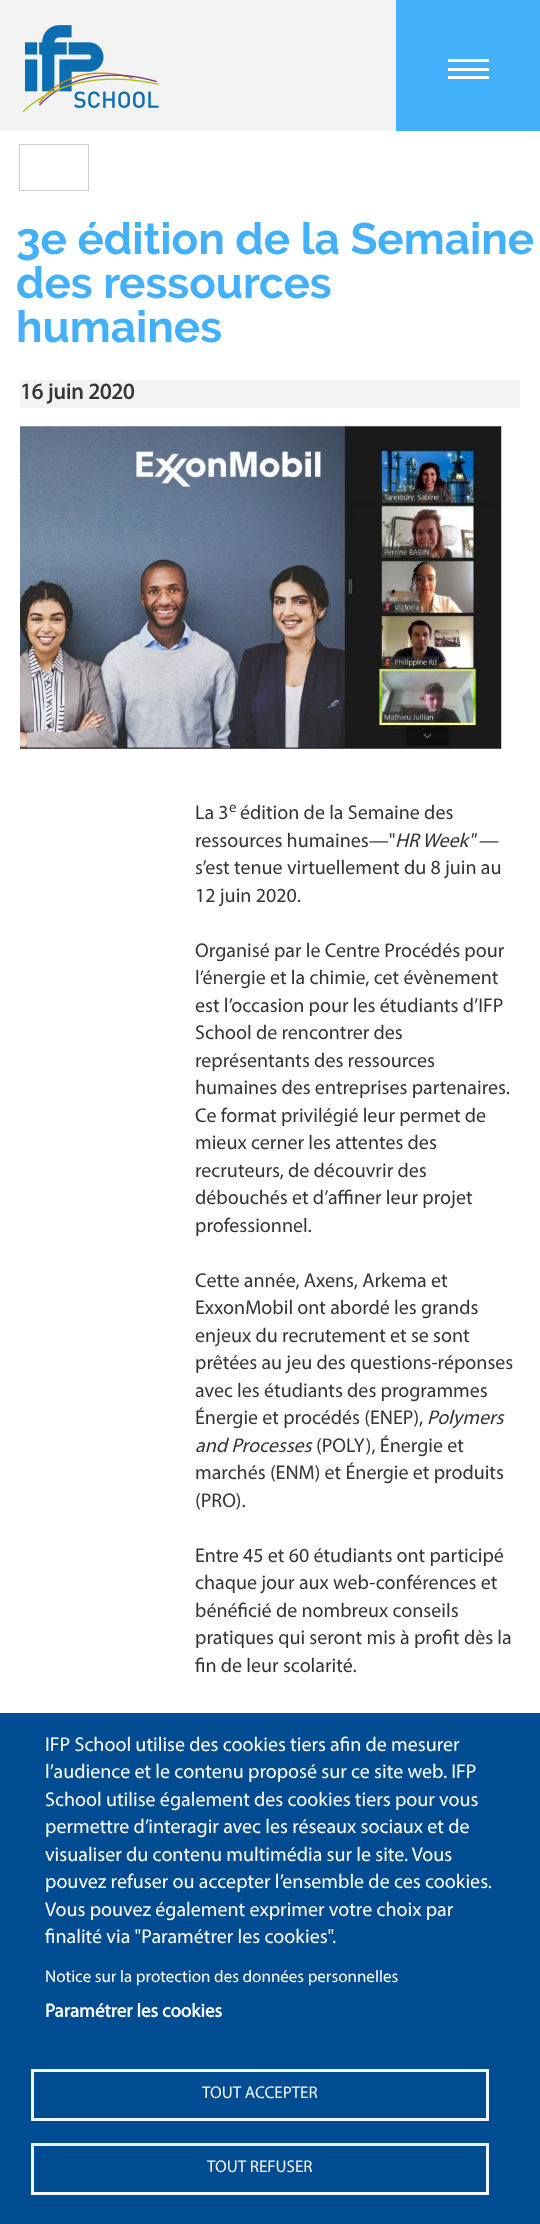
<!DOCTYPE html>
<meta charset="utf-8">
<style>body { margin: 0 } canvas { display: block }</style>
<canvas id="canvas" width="540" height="2224"></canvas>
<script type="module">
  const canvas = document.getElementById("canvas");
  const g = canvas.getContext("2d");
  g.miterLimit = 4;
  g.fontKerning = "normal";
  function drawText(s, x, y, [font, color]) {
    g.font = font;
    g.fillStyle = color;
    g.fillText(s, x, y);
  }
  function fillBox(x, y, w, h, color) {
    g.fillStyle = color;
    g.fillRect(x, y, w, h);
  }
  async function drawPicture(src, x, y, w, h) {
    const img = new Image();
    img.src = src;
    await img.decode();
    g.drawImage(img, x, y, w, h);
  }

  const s1 = ["bold 44px Raleway", "#43B0FB"];
  const s2 = ["bold 22.5px Myriad", "#353535"];
  const s3 = ["20px Myriad", "#353535"];
  const s4 = ["15px Myriad", "#353535"];
  const s5 = ["italic 20px Myriad", "#353535"];
  const s6 = ["20px Myriad", "#FFFFFF"];
  const s7 = ["17px Myriad", "#FFFFFF"];
  const s8 = ["bold 19px Myriad", "#FFFFFF"];
  const s9 = ["17px Myriad", "#F2F6FA"];

  fillBox(0, 0, 540, 2224, "#F3F3F3");
  fillBox(0, 131, 540, 1582, "#FFFFFF");
  g.strokeStyle = "#CECECE";
  g.strokeRect(19.5, 144.5, 69, 46);
  drawText("3e édition de la Semaine", 16, 254, s1);
  drawText("des ressources", 16, 298, s1);
  drawText("humaines", 16, 342, s1);
  fillBox(20, 380, 500, 28, "#F3F3F3");
  drawText("16 juin 2020", 20, 399, s2);
  await drawPicture("pic1.png", 20, 426, 482, 323);
  drawText("La 3", 195, 819, s3);
  drawText("e", 229, 812, s4);
  drawText("édition de la Semaine des", 240, 819, s3);
  drawText("ressources humaines—\"", 195, 847, s3);
  drawText("HR Week\"", 395, 847, s5);
  drawText("—", 479, 847, s3);
  drawText("s’est tenue virtuellement du 8 juin au", 195, 874, s3);
  drawText("12 juin 2020.", 195, 902, s3);
  drawText("Organisé par le Centre Procédés pour", 195, 957, s3);
  drawText("l’énergie et la chimie, cet évènement", 195, 984, s3);
  drawText("est l’occasion pour les étudiants d’IFP", 195, 1012, s3);
  drawText("School de rencontrer des", 195, 1039, s3);
  drawText("représentants des ressources", 195, 1067, s3);
  drawText("humaines des entreprises partenaires.", 195, 1094, s3);
  drawText("Ce format privilégié leur permet de", 195, 1122, s3);
  drawText("mieux cerner les attentes des", 195, 1149, s3);
  drawText("recruteurs, de découvrir des", 195, 1177, s3);
  drawText("débouchés et d’affiner leur projet", 195, 1204, s3);
  drawText("professionnel.", 195, 1232, s3);
  drawText("Cette année, Axens, Arkema et", 195, 1287, s3);
  drawText("ExxonMobil ont abordé les grands", 195, 1314, s3);
  drawText("enjeux du recrutement et se sont", 195, 1342, s3);
  drawText("prêtées au jeu des questions-réponses", 195, 1369, s3);
  drawText("avec les étudiants des programmes", 195, 1397, s3);
  drawText("Énergie et procédés (ENEP),", 195, 1424, s3);
  drawText("Polymers", 427, 1424, s5);
  drawText("and Processes", 195, 1452, s5);
  drawText("(POLY), Énergie et", 316, 1452, s3);
  drawText("marchés (ENM) et Énergie et produits", 195, 1479, s3);
  drawText("(PRO).", 195, 1507, s3);
  drawText("Entre 45 et 60 étudiants ont participé", 195, 1562, s3);
  drawText("chaque jour aux web-conférences et", 195, 1589, s3);
  drawText("bénéficié de nombreux conseils", 195, 1617, s3);
  drawText("pratiques qui seront mis à profit dès la", 195, 1644, s3);
  drawText("fin de leur scolarité.", 195, 1672, s3);
  await drawPicture("pic2.png", 23, 25, 136, 87);
  fillBox(396, 0, 144, 131, "#43B0FB");
  fillBox(448, 68, 41, 3, "#FFFFFF");
  fillBox(448, 59, 41, 3, "#FFFFFF");
  fillBox(448, 76, 41, 3, "#FFFFFF");
  fillBox(0, 1713, 540, 511, "#004C93");
  drawText("IFP School utilise des cookies tiers afin de mesurer", 45, 1751, s6);
  drawText("l’audience et le contenu proposé sur ce site web. IFP", 45, 1778, s6);
  drawText("School utilise également des cookies tiers pour vous", 45, 1806, s6);
  drawText("permettre d’interagir avec les réseaux sociaux et de", 45, 1833, s6);
  drawText("visualiser du contenu multimédia sur le site. Vous", 45, 1861, s6);
  drawText("pouvez refuser ou accepter l’ensemble de ces cookies.", 45, 1888, s6);
  drawText("Vous pouvez également exprimer votre choix par", 45, 1916, s6);
  drawText("finalité via \"Paramétrer les cookies\".", 45, 1943, s6);
  drawText("Notice sur la protection des données personnelles", 45, 1982, s7);
  drawText("Paramétrer les cookies", 45, 2017, s8);
  g.strokeStyle = "#F2F6FA";
  g.lineWidth = 3;
  g.strokeRect(32.5, 2070.5, 455, 49);
  drawText("TOUT ACCEPTER", 202, 2098, s9);
  g.strokeRect(32.5, 2144.5, 455, 49);
  drawText("TOUT REFUSER", 207, 2172, s9);
</script>
